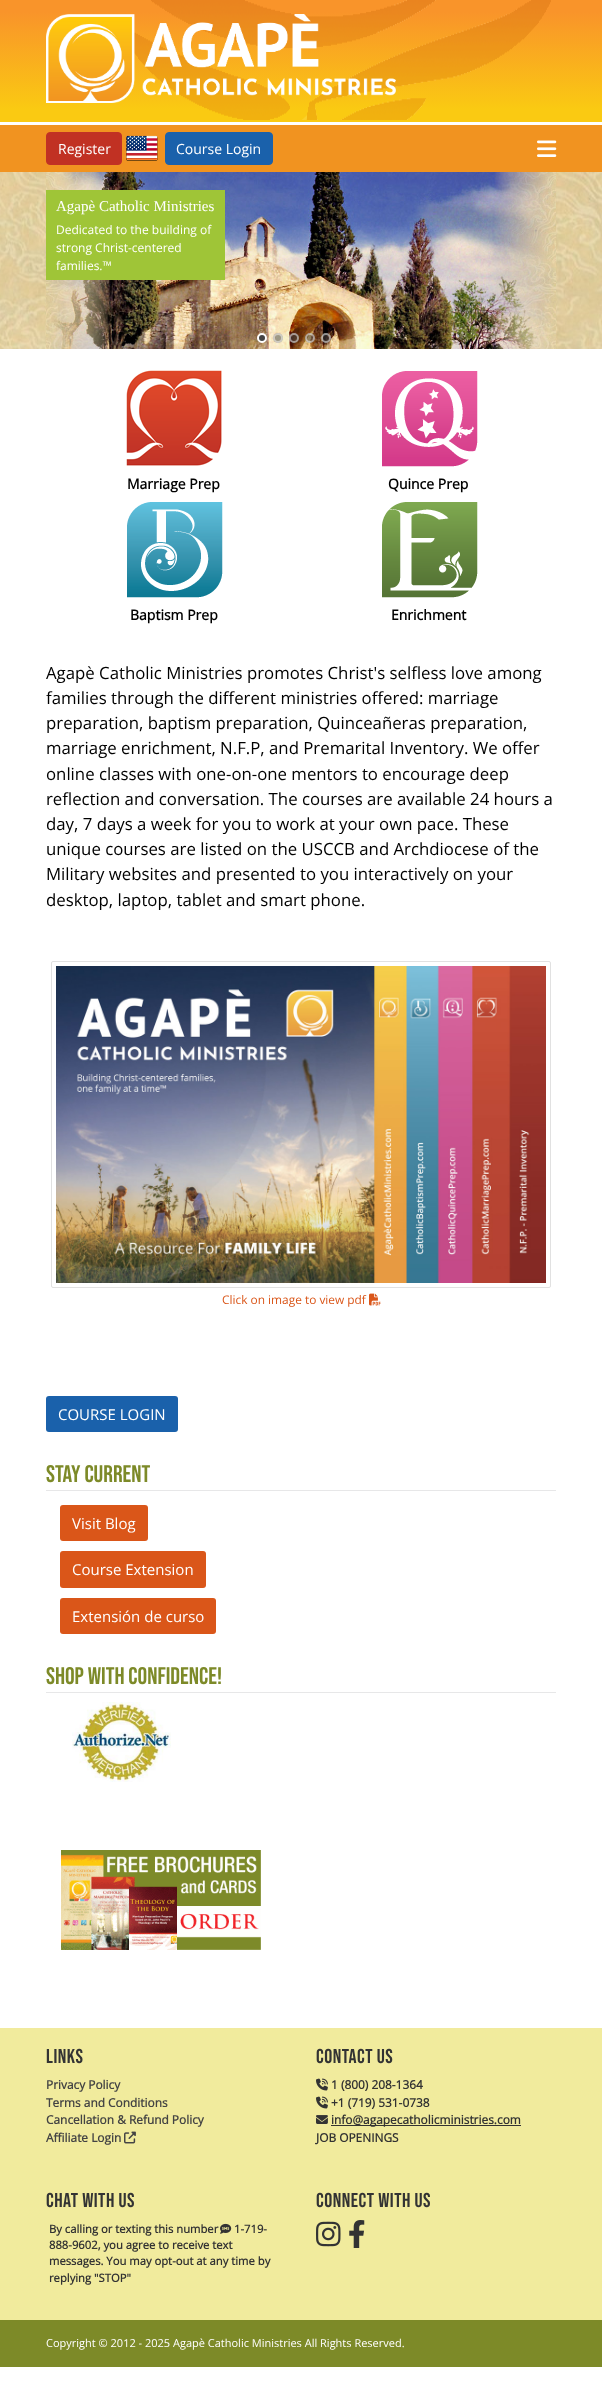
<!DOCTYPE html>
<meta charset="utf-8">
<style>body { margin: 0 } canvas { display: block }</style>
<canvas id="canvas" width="602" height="2381"></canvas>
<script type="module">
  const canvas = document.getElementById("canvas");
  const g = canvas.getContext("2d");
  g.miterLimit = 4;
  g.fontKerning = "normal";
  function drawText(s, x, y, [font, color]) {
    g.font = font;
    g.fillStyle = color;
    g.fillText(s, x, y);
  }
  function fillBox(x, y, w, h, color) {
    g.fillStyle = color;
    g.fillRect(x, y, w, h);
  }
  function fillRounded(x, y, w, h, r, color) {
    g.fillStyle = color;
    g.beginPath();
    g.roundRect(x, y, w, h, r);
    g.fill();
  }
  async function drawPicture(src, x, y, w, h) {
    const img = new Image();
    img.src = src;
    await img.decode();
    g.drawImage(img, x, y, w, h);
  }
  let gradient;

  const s1 = ["14px Open Sans", "#FFFFFF"];
  const s2 = ["15px Liberation Serif", "#FFFFFF"];
  const s3 = ["12px Open Sans", "#FFFFFF"];
  const s4 = ["bold 14px Open Sans", "#000000"];
  const s5 = ["16.8px Open Sans", "#000000"];
  const s6 = ["11.9px Open Sans", "#DA5619"];
  const s7 = ["15px Open Sans", "#FFFFFF"];
  const s8 = ["24px Bebas Neue", "#7D8A28"];
  const s9 = ["20px Bebas Neue", "#333333"];
  const s10 = ["bold 11.9px Open Sans", "#444444"];
  const s11 = ["bold 11.9px Open Sans", "#333333"];
  const s12 = ["bold 11.25px Open Sans", "#333333"];
  const s13 = ["11px Open Sans", "#FFFFFF"];

  fillBox(0, 0, 602, 2381, "#FFFFFF");
  gradient = g.createLinearGradient(301, 0, 301, 122);
  gradient.addColorStop(0.1, "#F9942A");
  gradient.addColorStop(0.9, "#FACA12");
  g.fillStyle = gradient;
  g.fillRect(0, 0, 602, 122);
  await drawPicture("pic1.png", 134, 0, 417, 120);
  await drawPicture("pic2.png", 46, 14, 350, 89);
  fillBox(0, 125, 602, 47, "#F19320");
  g.fillStyle = "#C13123";
  g.beginPath();
  g.roundRect(46.5, 132.5, 75, 32, 3.5);
  g.fill();
  g.strokeStyle = "#C13126";
  g.stroke();
  drawText("Register", 58, 154, s1);
  await drawPicture("pic3.png", 126, 135, 32, 26);
  g.fillStyle = "#1A61AB";
  g.beginPath();
  g.roundRect(165.5, 132.5, 107, 32, 3.5);
  g.fill();
  g.strokeStyle = "#1A61AB";
  g.stroke();
  drawText("Course Login", 176, 154, s1);
  await drawPicture("pic4.png", 537, 140, 20, 17);
  await drawPicture("pic5.png", 0, 172, 602, 177);
  await drawPicture("pic6.png", 46, 172, 510, 177);
  fillBox(46, 190, 179, 90, "#9FC537");
  drawText("Agapè Catholic Ministries", 56, 211, s2);
  drawText("Dedicated to the building of", 56, 234, s3);
  drawText("strong Christ-centered", 56, 252, s3);
  drawText("families.™", 56, 270, s3);
  g.fillStyle = "#444444";
  g.beginPath();
  g.arc(262, 338, 4, 0, Math.PI * 2);
  g.fill();
  g.strokeStyle = "#FFFFFF";
  g.lineWidth = 2;
  g.stroke();
  g.fillStyle = "rgba(68, 68, 68, 0.5)";
  g.beginPath();
  g.arc(278, 338, 5, 0, Math.PI * 2);
  g.fill();
  g.beginPath();
  g.arc(278, 338, 4, 0, Math.PI * 2);
  g.strokeStyle = "rgba(255, 255, 255, 0.5)";
  g.stroke();
  g.beginPath();
  g.arc(294, 338, 5, 0, Math.PI * 2);
  g.fill();
  g.beginPath();
  g.arc(294, 338, 4, 0, Math.PI * 2);
  g.stroke();
  g.beginPath();
  g.arc(310, 338, 5, 0, Math.PI * 2);
  g.fill();
  g.beginPath();
  g.arc(310, 338, 4, 0, Math.PI * 2);
  g.stroke();
  g.beginPath();
  g.arc(326, 338, 5, 0, Math.PI * 2);
  g.fill();
  g.beginPath();
  g.arc(326, 338, 4, 0, Math.PI * 2);
  g.stroke();
  await drawPicture("pic7.png", 126, 370, 96, 96);
  drawText("Marriage Prep", 127, 489, s4);
  await drawPicture("pic8.png", 382, 371, 96, 96);
  drawText("Quince Prep", 388, 489, s4);
  await drawPicture("pic9.png", 127, 502, 96, 96);
  drawText("Baptism Prep", 130, 620, s4);
  await drawPicture("pic10.png", 382, 502, 96, 96);
  drawText("Enrichment", 391, 620, s4);
  drawText("Agapè Catholic Ministries promotes Christ's selfless love among", 46, 679, s5);
  drawText("families through the different ministries offered: marriage", 46, 704, s5);
  drawText("preparation, baptism preparation, Quinceañeras preparation,", 46, 729, s5);
  drawText("marriage enrichment, N.F.P, and Premarital Inventory. We offer", 46, 754, s5);
  drawText("online classes with one-on-one mentors to encourage deep", 46, 780, s5);
  drawText("reflection and conversation. The courses are available 24 hours a", 46, 805, s5);
  drawText("day, 7 days a week for you to work at your own pace. These", 46, 830, s5);
  drawText("unique courses are listed on the USCCB and Archdiocese of the", 46, 855, s5);
  drawText("Military websites and presented to you interactively on your", 46, 880, s5);
  drawText("desktop, laptop, tablet and smart phone.", 46, 906, s5);
  g.beginPath();
  g.roundRect(51.5, 961.5, 499, 326, 1.5);
  g.strokeStyle = "#E1E1E1";
  g.lineWidth = 1;
  g.stroke();
  await drawPicture("pic11.png", 56, 966, 490, 317);
  drawText("Click on image to view pdf", 222, 1304, s6);
  await drawPicture("pic12.png", 369, 1293, 12, 13);
  fillRounded(46, 1396, 132, 36, 3, "#1A61AB");
  drawText("COURSE LOGIN", 58, 1420, s7);
  fillBox(46, 1490, 510, 1, "#E7E7E8");
  drawText("STAY CURRENT", 46, 1482, s8);
  fillRounded(60, 1505, 88, 36, 3, "#DA5619");
  drawText("Visit Blog", 72, 1529, s7);
  fillRounded(60, 1551, 146, 37, 3, "#DA5619");
  drawText("Course Extension", 72, 1575, s7);
  fillRounded(60, 1598, 156, 36, 3, "#DA5619");
  drawText("Extensión de curso", 72, 1622, s7);
  fillBox(46, 1692, 510, 1, "#E7E7E8");
  drawText("SHOP WITH CONFIDENCE!", 46, 1684, s8);
  await drawPicture("pic13.png", 72, 1702, 99, 80);
  await drawPicture("pic14.png", 61, 1850, 200, 100);
  fillBox(0, 2028, 602, 292, "#F1EB9D");
  g.letterSpacing = "0.5px";
  drawText("LINKS", 46, 2063, s9);
  g.letterSpacing = "0px";
  drawText("Privacy Policy", 46, 2089, s10);
  drawText("Terms and Conditions", 46, 2107, s10);
  drawText("Cancellation & Refund Policy", 46, 2124, s10);
  drawText("Affiliate Login", 46, 2142, s10);
  await drawPicture("pic15.png", 124, 2131, 12, 13);
  g.letterSpacing = "0.5px";
  drawText("CONTACT US", 316, 2063, s9);
  await drawPicture("pic16.png", 316, 2078, 12, 13);
  g.letterSpacing = "0px";
  drawText("1 (800) 208-1364", 331, 2089, s11);
  await drawPicture("pic16.png", 316, 2096, 12, 13);
  drawText("+1 (719) 531-0738", 331, 2107, s11);
  await drawPicture("pic17.png", 316, 2115, 12, 9);
  fillBox(331, 2125, 190, 1, "#333333");
  drawText("info@agapecatholicministries.com", 331, 2124, s11);
  drawText("JOB OPENINGS", 316, 2142, s11);
  g.letterSpacing = "0.5px";
  drawText("CHAT WITH US", 46, 2207, s9);
  g.letterSpacing = "0px";
  drawText("By calling or texting this number", 49, 2233, s12);
  await drawPicture("pic18.png", 220, 2223, 12, 11);
  drawText("1-719-", 234, 2233, s12);
  drawText("888-9602, you agree to receive text", 49, 2249, s12);
  drawText("messages. You may opt-out at any time by", 49, 2265, s12);
  drawText("replying \"STOP\"", 49, 2282, s12);
  g.letterSpacing = "0.5px";
  drawText("CONNECT WITH US", 316, 2207, s9);
  await drawPicture("pic19.png", 316, 2221, 25, 26);
  await drawPicture("pic20.png", 349, 2220, 16, 28);
  fillBox(0, 2320, 602, 47, "#7D8A28");
  g.letterSpacing = "0px";
  drawText("Copyright © 2012 - 2025 Agapè Catholic Ministries All Rights Reserved.", 46, 2347, s13);
</script>
